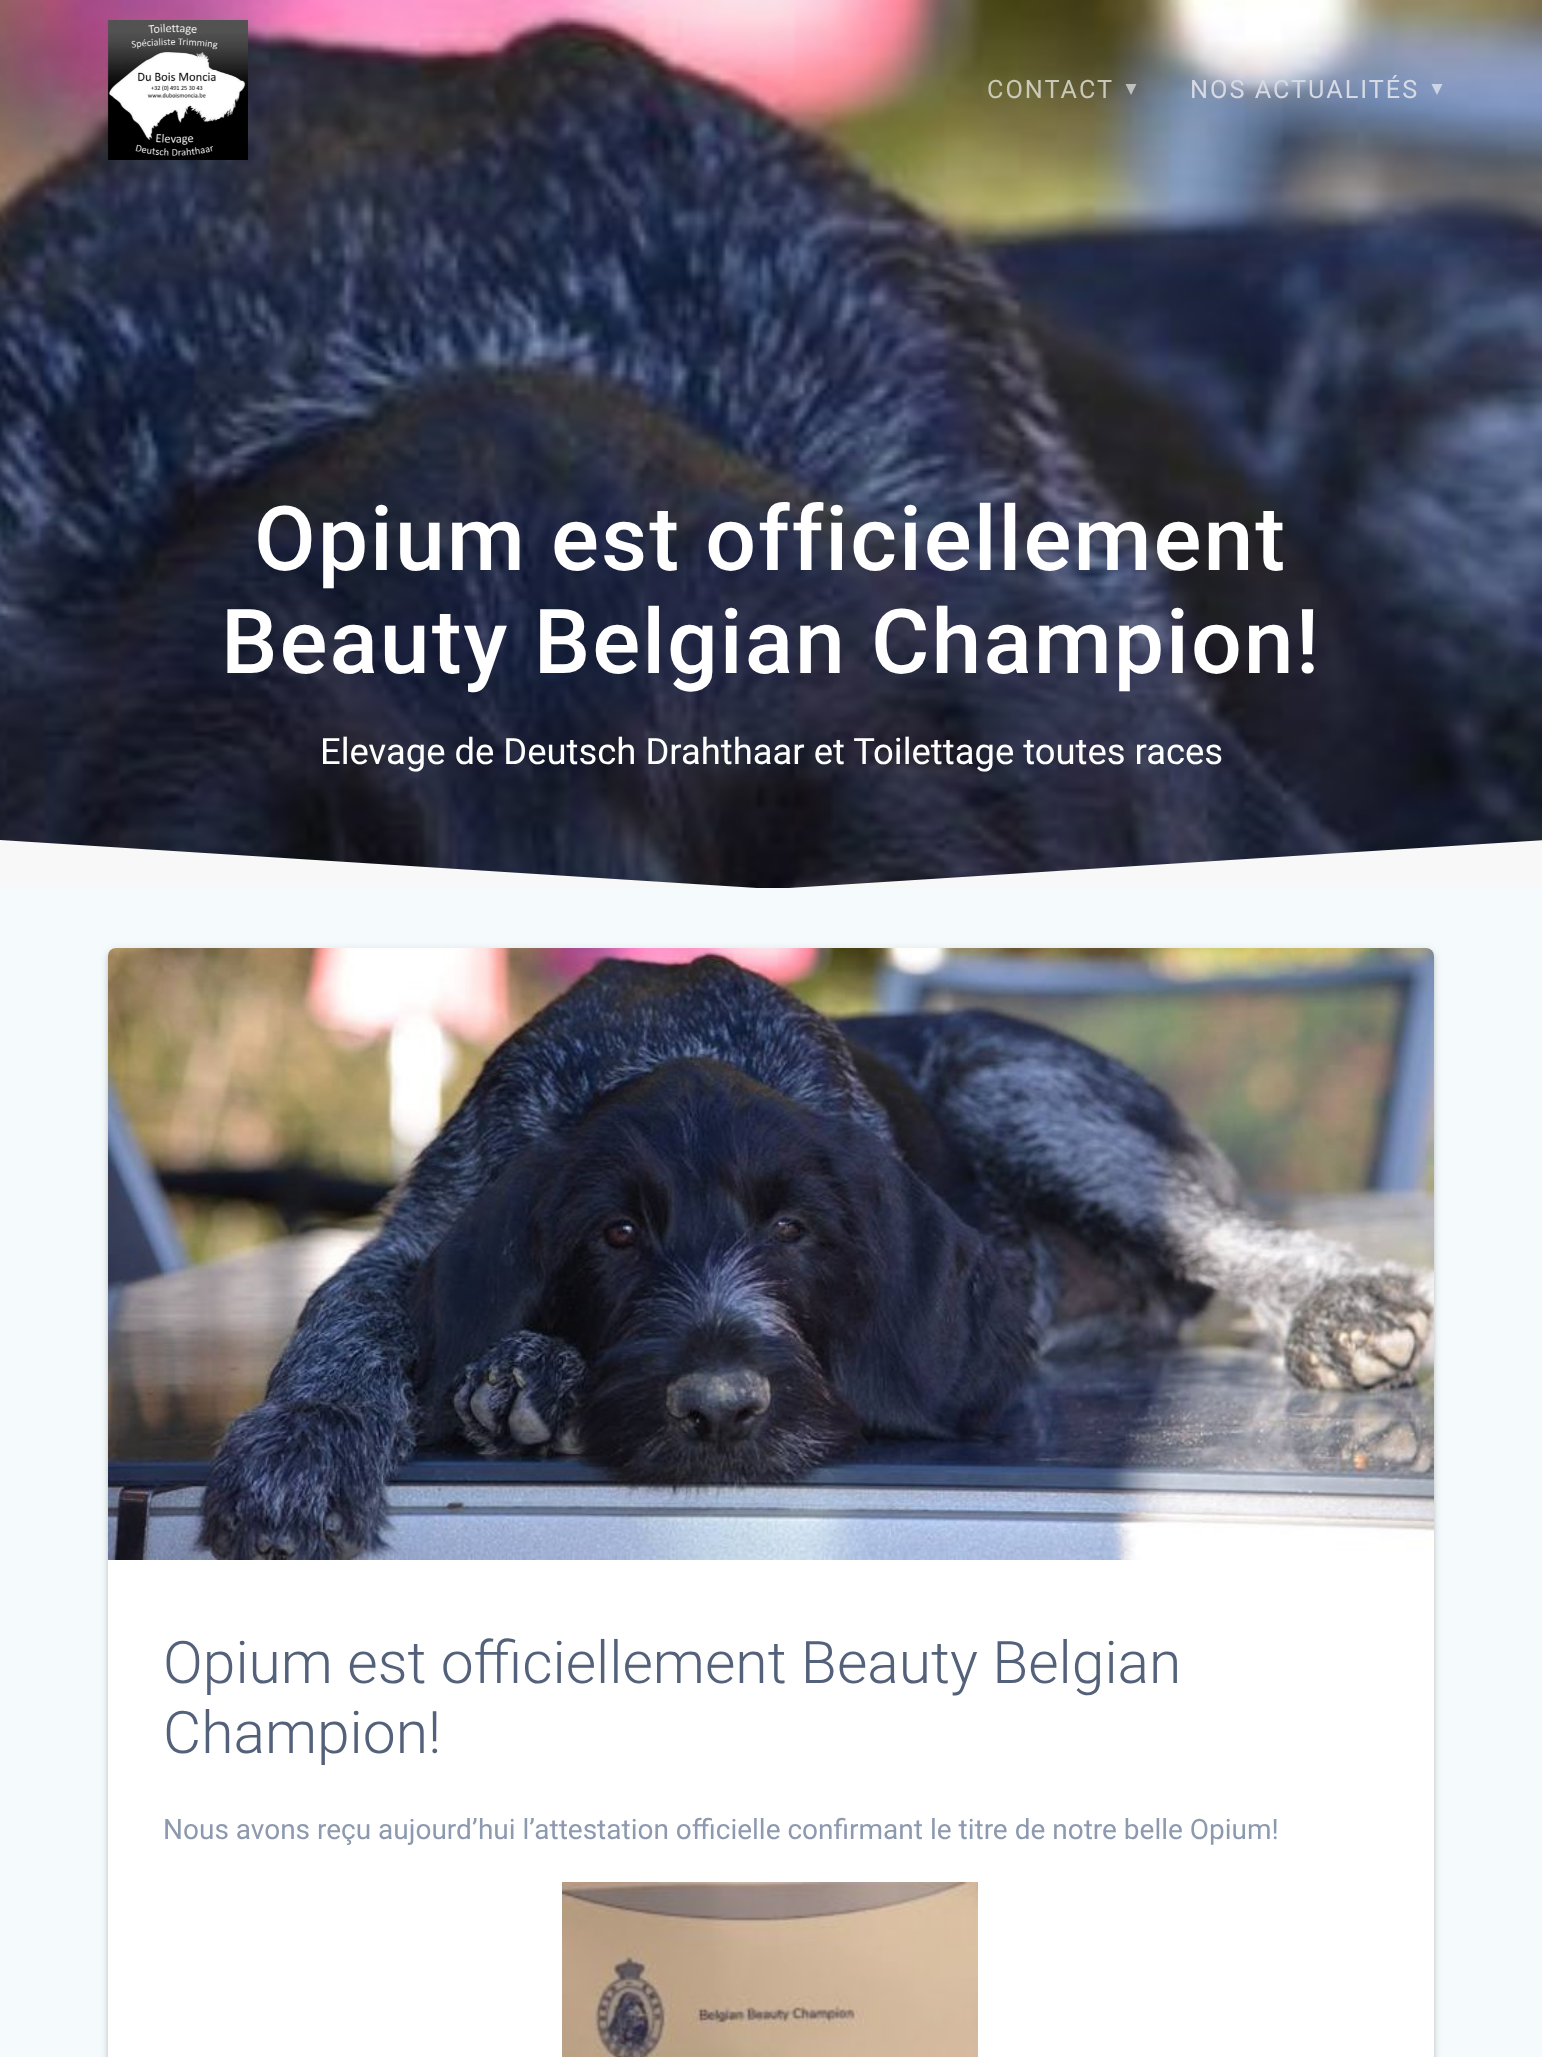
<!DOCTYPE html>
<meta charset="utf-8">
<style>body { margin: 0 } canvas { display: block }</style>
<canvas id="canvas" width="1542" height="2057"></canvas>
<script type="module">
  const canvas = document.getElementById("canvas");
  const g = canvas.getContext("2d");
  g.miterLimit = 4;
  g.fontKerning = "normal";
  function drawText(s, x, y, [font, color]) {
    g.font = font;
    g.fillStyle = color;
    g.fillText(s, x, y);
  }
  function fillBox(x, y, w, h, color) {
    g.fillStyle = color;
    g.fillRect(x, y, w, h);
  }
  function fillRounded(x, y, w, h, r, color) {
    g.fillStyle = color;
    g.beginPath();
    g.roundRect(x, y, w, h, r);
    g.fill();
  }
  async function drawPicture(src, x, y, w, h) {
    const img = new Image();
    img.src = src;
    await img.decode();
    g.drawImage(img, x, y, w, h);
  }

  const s1 = ["25.25px Roboto", "#C9C8B9"];
  const s2 = ["25.25px Roboto", "#D5DAE4"];
  const s3 = ["500 89.6px Roboto", "#FFFFFF"];
  const s4 = ["36.4px Roboto", "#FFFFFF"];
  const s5 = ["300 58.75px Roboto", "#54617A"];
  const s6 = ["28px Roboto", "#8D99AE"];

  fillBox(0, 0, 1542, 2057, "#FFFFFF");
  await drawPicture("pic2.png", 0, 0, 1542, 888);
  await drawPicture("pic1.png", 107, 20, 141, 140);
  g.letterSpacing = "2px";
  drawText("CONTACT", 987, 98, s1);
  g.fillStyle = "rgba(255, 255, 255, 0.59)";
  g.beginPath();
  g.moveTo(1125.5, 84);
  g.lineTo(1131, 95);
  g.lineTo(1136.5, 84);
  g.closePath();
  g.fill();
  drawText("NOS ACTUALITÉS", 1190, 98, s2);
  g.fillStyle = "rgba(255, 255, 255, 0.59)";
  g.beginPath();
  g.moveTo(1431.5, 84);
  g.lineTo(1437, 95);
  g.lineTo(1442.5, 84);
  g.closePath();
  g.fill();
  drawText("Opium est officiellement", 254, 570, s3);
  drawText("Beauty Belgian Champion!", 221, 673, s3);
  g.letterSpacing = "0px";
  drawText("Elevage de Deutsch Drahthaar et Toilettage toutes races", 320, 764, s4);
  g.fillStyle = "#F8F8F8";
  g.beginPath();
  g.moveTo(773, 889);
  g.lineTo(0, 840);
  g.lineTo(0, 892);
  g.lineTo(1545, 892);
  g.lineTo(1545, 840);
  g.closePath();
  g.fill();
  fillBox(0, 888, 1542, 1169, "#F5FAFD");
  g.fillStyle = "rgba(0, 0, 0, 0.12)";
  g.filter = "blur(5px)";
  g.beginPath();
  g.roundRect(108, 950, 1326, 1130, 8);
  g.fill();
  g.filter = "none";
  g.fillStyle = "rgba(0, 0, 0, 0.14)";
  g.filter = "blur(2px)";
  g.beginPath();
  g.roundRect(108, 952, 1326, 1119, 8);
  g.fill();
  g.filter = "none";
  fillRounded(108, 948, 1326, 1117, 8, "#FFFFFF");
  await drawPicture("pic3.png", 108, 948, 1326, 612);
  drawText("Opium est officiellement Beauty Belgian", 163, 1683, s5);
  drawText("Champion!", 163, 1753, s5);
  drawText("Nous avons reçu aujourd’hui l’attestation officielle confirmant le titre de notre belle Opium!", 163, 1839, s6);
  await drawPicture("pic4.png", 562, 1882, 416, 175);
</script>
